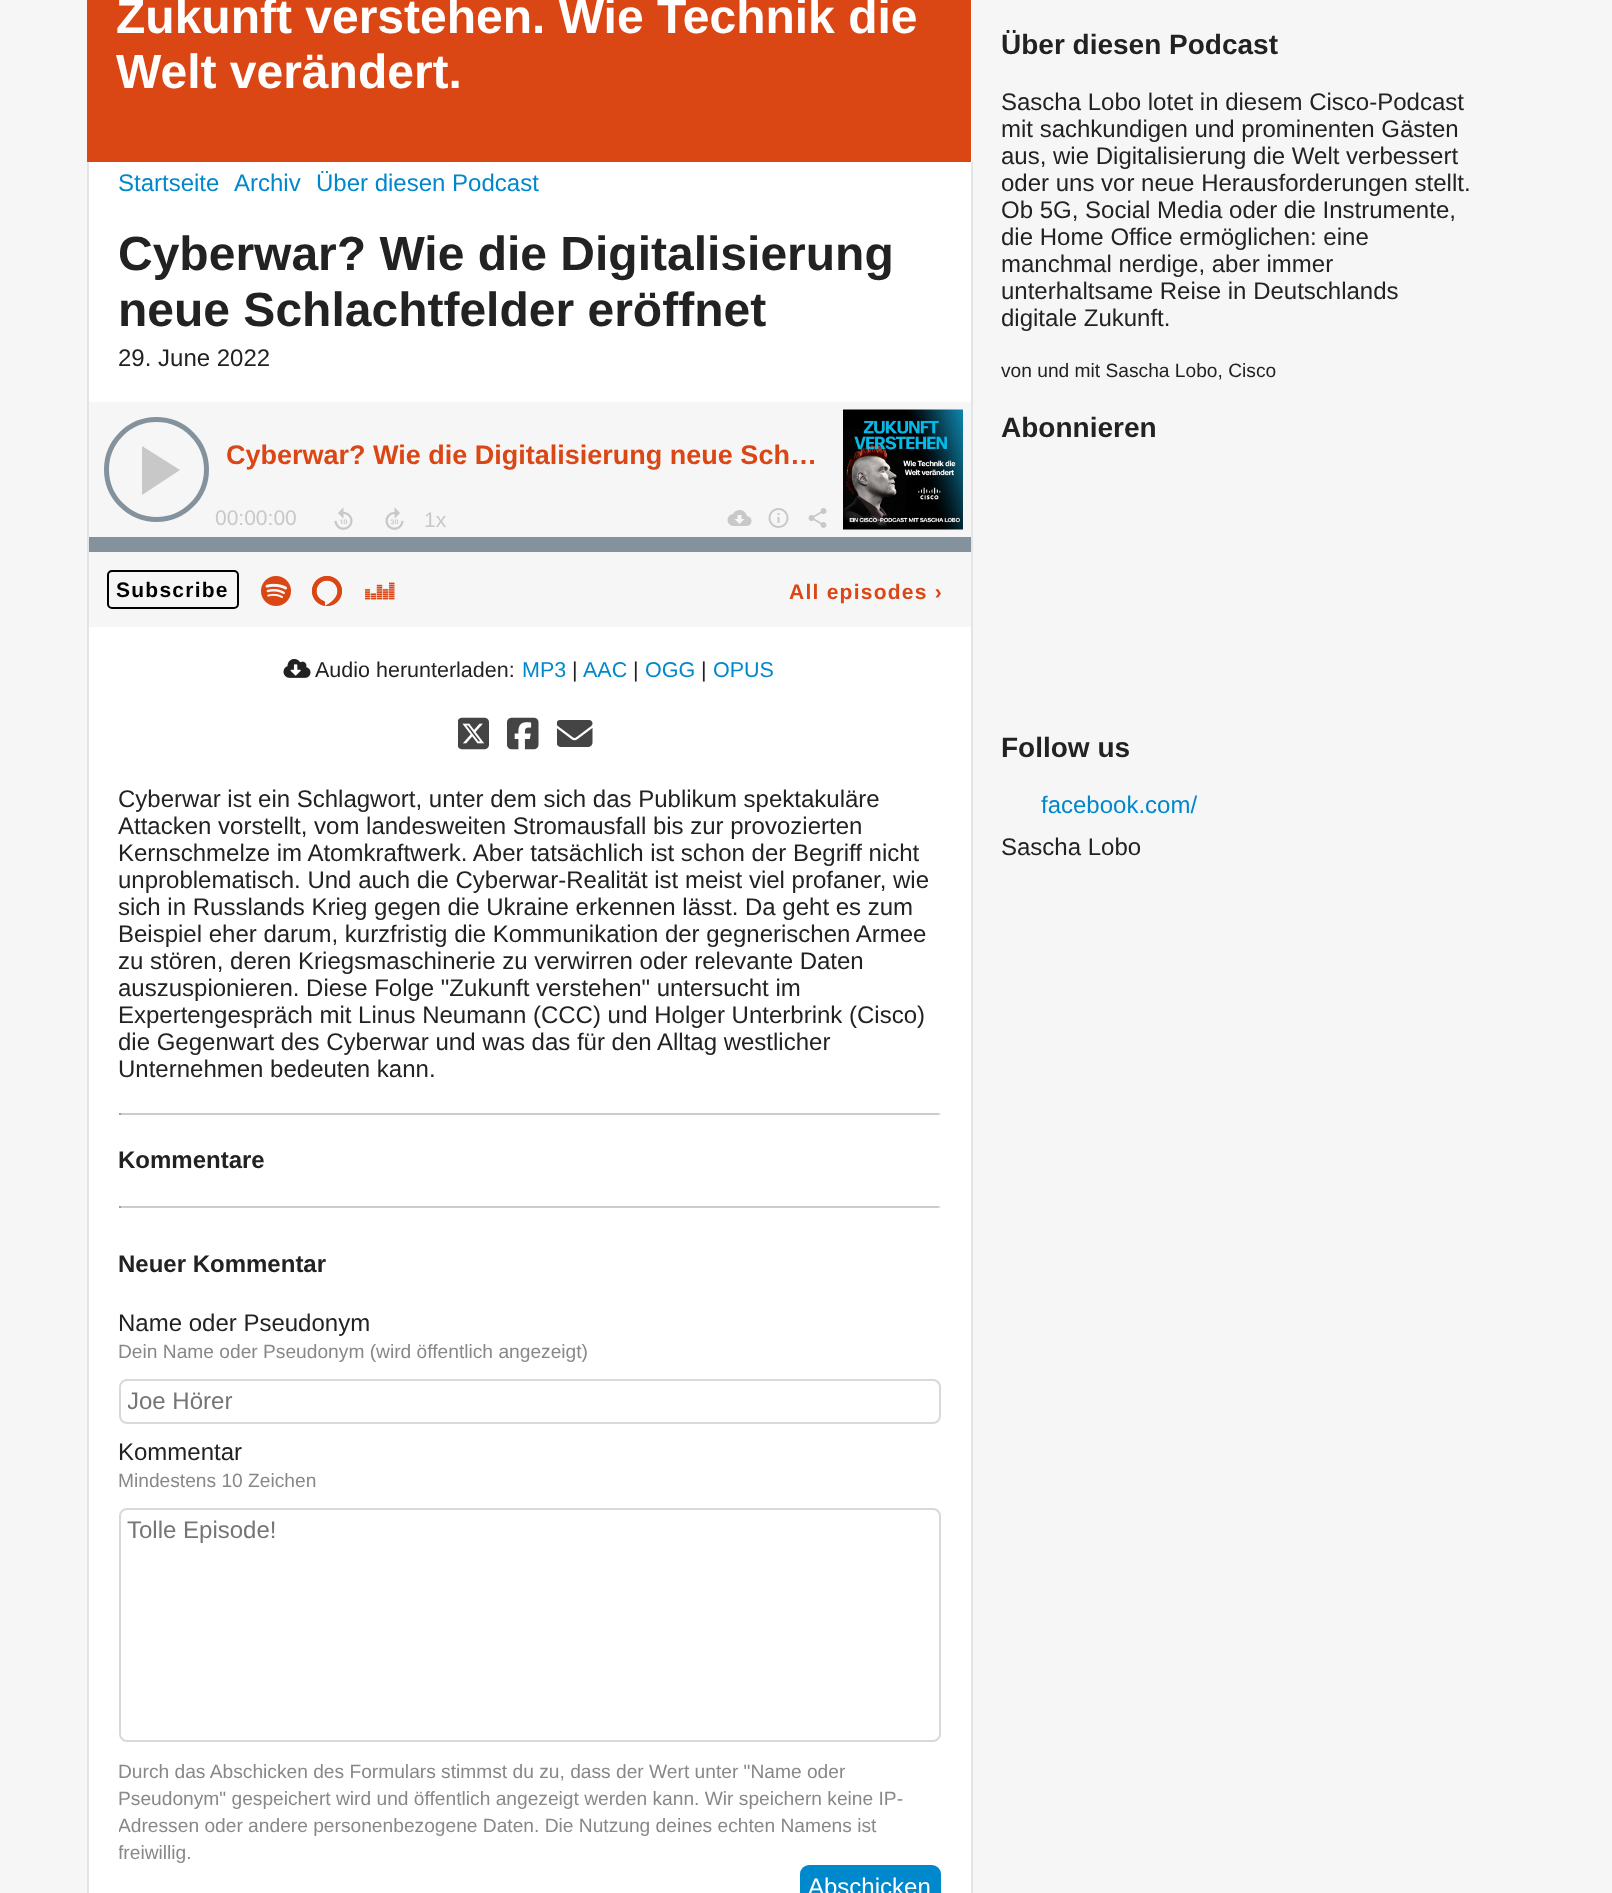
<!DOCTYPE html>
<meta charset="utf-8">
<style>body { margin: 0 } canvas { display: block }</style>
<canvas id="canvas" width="1612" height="1893"></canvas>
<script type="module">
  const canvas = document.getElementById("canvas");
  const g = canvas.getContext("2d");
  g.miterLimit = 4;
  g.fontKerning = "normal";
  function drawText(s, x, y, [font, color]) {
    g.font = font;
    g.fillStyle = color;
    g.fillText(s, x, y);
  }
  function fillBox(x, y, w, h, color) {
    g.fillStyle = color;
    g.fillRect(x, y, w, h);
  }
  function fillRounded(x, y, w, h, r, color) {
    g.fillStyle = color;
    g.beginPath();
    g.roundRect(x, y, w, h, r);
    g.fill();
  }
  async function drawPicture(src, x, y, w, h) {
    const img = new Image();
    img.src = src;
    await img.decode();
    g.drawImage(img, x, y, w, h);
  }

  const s1 = ["bold 48px Liberation Sans", "#FFFFFF"];
  const s2 = ["24px Liberation Sans", "#0088CC"];
  const s3 = ["bold 48px Liberation Sans", "#222222"];
  const s4 = ["24px Liberation Sans", "#222222"];
  const s5 = ["bold 27px Liberation Sans", "#DB4615"];
  const s6 = ["21px Liberation Sans", "#C8C8C8"];
  const s7 = ["bold 21px Liberation Sans", "#000000"];
  const s8 = ["bold 21px Liberation Sans", "#DB4615"];
  const s9 = ["21.5px Liberation Sans", "#222222"];
  const s10 = ["21.5px Liberation Sans", "#0088CC"];
  const s11 = ["bold 24px Liberation Sans", "#222222"];
  const s12 = ["19.2px Liberation Sans", "#888888"];
  const s13 = ["24px Liberation Sans", "#757575"];
  const s14 = ["24px Liberation Sans", "#FFFFFF"];
  const s15 = ["bold 28px Liberation Sans", "#222222"];
  const s16 = ["19.2px Liberation Sans", "#222222"];

  fillBox(0, 0, 1612, 1893, "#F6F6F6");
  fillBox(89, 0, 883, 1893, "#FFFFFF");
  fillBox(87, 0, 884, 162, "#DB4615");
  drawText("Zukunft verstehen. Wie Technik die", 116, 33, s1);
  drawText("Welt verändert.", 116, 88, s1);
  fillBox(971, 162, 2, 1731, "#E4E4E4");
  fillBox(87, 162, 2, 1731, "#E4E4E4");
  drawText("Startseite", 118, 191, s2);
  drawText("Archiv", 234, 191, s2);
  drawText("Über diesen Podcast", 316, 191, s2);
  drawText("Cyberwar? Wie die Digitalisierung", 118, 270, s3);
  drawText("neue Schlachtfelder eröffnet", 118, 326, s3);
  drawText("29. June 2022", 118, 366, s4);
  fillBox(89, 402, 882, 225, "#F6F6F6");
  g.beginPath();
  g.arc(156.5, 469.5, 50, 0, Math.PI * 2);
  g.strokeStyle = "#83929C";
  g.lineWidth = 5;
  g.stroke();
  g.fillStyle = "#C8C8C8";
  g.beginPath();
  g.moveTo(142, 446);
  g.lineTo(180, 470);
  g.lineTo(142, 495);
  g.closePath();
  g.fill();
  g.save();
  g.beginPath();
  g.rect(227, 437, 591, 37);
  g.clip();
  drawText("Cyberwar? Wie die Digitalisierung neue Sch…", 226, 464, s5);
  g.restore();
  await drawPicture("pic1.png", 843, 409, 120, 121);
  drawText("00:00:00", 215, 525, s6);
  fillBox(89, 537, 882, 15, "#83929C");
  await drawPicture("pic2.png", 334, 507, 19, 23);
  await drawPicture("pic3.png", 385, 507, 19, 23);
  drawText("1x", 424, 527, s6);
  await drawPicture("pic4.png", 727, 510, 25, 16);
  await drawPicture("pic5.png", 768, 508, 21, 20);
  await drawPicture("pic6.png", 808, 508, 19, 20);
  g.beginPath();
  g.roundRect(108, 571, 130, 37, 4);
  g.strokeStyle = "#000000";
  g.lineWidth = 2;
  g.stroke();
  g.letterSpacing = "1.25px";
  drawText("Subscribe", 116, 597, s7);
  await drawPicture("pic7.png", 261, 576, 30, 30);
  await drawPicture("pic8.png", 312, 576, 30, 30);
  await drawPicture("pic9.png", 365, 582, 30, 18);
  drawText("All episodes ›", 789, 599, s8);
  await drawPicture("pic10.png", 283, 658, 28, 20);
  g.letterSpacing = "0px";
  drawText("Audio herunterladen:", 315, 677, s9);
  drawText("MP3", 522, 677, s10);
  drawText("|", 572, 677, s9);
  drawText("AAC", 583, 677, s10);
  drawText("|", 633, 677, s9);
  drawText("OGG", 645, 677, s10);
  drawText("|", 701, 677, s9);
  drawText("OPUS", 713, 677, s10);
  await drawPicture("pic11.png", 458, 717, 31, 33);
  await drawPicture("pic12.png", 507, 717, 32, 33);
  await drawPicture("pic13.png", 557, 720, 36, 27);
  drawText("Cyberwar ist ein Schlagwort, unter dem sich das Publikum spektakuläre", 118, 807, s4);
  drawText("Attacken vorstellt, vom landesweiten Stromausfall bis zur provozierten", 118, 834, s4);
  drawText("Kernschmelze im Atomkraftwerk. Aber tatsächlich ist schon der Begriff nicht", 118, 861, s4);
  drawText("unproblematisch. Und auch die Cyberwar-Realität ist meist viel profaner, wie", 118, 888, s4);
  drawText("sich in Russlands Krieg gegen die Ukraine erkennen lässt. Da geht es zum", 118, 915, s4);
  drawText("Beispiel eher darum, kurzfristig die Kommunikation der gegnerischen Armee", 118, 942, s4);
  drawText("zu stören, deren Kriegsmaschinerie zu verwirren oder relevante Daten", 118, 969, s4);
  drawText("auszuspionieren. Diese Folge \"Zukunft verstehen\" untersucht im", 118, 996, s4);
  drawText("Expertengespräch mit Linus Neumann (CCC) und Holger Unterbrink (Cisco)", 118, 1023, s4);
  drawText("die Gegenwart des Cyberwar und was das für den Alltag westlicher", 118, 1050, s4);
  drawText("Unternehmen bedeuten kann.", 118, 1077, s4);
  fillBox(119, 1113, 822, 2, "#CCCCCC");
  fillBox(939, 1113, 2, 2, "#EEEEEE");
  fillBox(119, 1113, 2, 2, "#9F9F9F");
  drawText("Kommentare", 118, 1168, s11);
  fillBox(119, 1206, 822, 2, "#CCCCCC");
  fillBox(939, 1206, 2, 2, "#EEEEEE");
  fillBox(119, 1206, 2, 2, "#9F9F9F");
  drawText("Neuer Kommentar", 118, 1272, s11);
  drawText("Name oder Pseudonym", 118, 1331, s4);
  drawText("Dein Name oder Pseudonym (wird öffentlich angezeigt)", 118, 1358, s12);
  g.beginPath();
  g.roundRect(120, 1380, 820, 43, 7);
  g.strokeStyle = "#D9D9D9";
  g.stroke();
  g.save();
  g.beginPath();
  g.rect(128, 1388, 804, 27);
  g.clip();
  drawText("Joe Hörer", 127, 1409, s13);
  g.restore();
  drawText("Kommentar", 118, 1460, s4);
  drawText("Mindestens 10 Zeichen", 118, 1487, s12);
  g.beginPath();
  g.roundRect(120, 1509, 820, 232, 7);
  g.stroke();
  drawText("Tolle Episode!", 127, 1538, s13);
  drawText("Durch das Abschicken des Formulars stimmst du zu, dass der Wert unter \"Name oder", 118, 1778, s12);
  drawText("Pseudonym\" gespeichert wird und öffentlich angezeigt werden kann. Wir speichern keine IP-", 118, 1805, s12);
  g.save();
  g.beginPath();
  g.rect(119, 1220, 822, 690);
  g.clip();
  drawText("Adressen oder andere personenbezogene Daten. Die Nutzung deines echten Namens ist", 118, 1832, s12);
  drawText("freiwillig.", 118, 1859, s12);
  g.restore();
  fillRounded(800, 1865, 141, 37, 9, "#0088CC");
  drawText("Abschicken", 808, 1895, s14);
  drawText("Über diesen Podcast", 1001, 54, s15);
  drawText("Sascha Lobo lotet in diesem Cisco-Podcast", 1001, 110, s4);
  drawText("mit sachkundigen und prominenten Gästen", 1001, 137, s4);
  drawText("aus, wie Digitalisierung die Welt verbessert", 1001, 164, s4);
  drawText("oder uns vor neue Herausforderungen stellt.", 1001, 191, s4);
  drawText("Ob 5G, Social Media oder die Instrumente,", 1001, 218, s4);
  drawText("die Home Office ermöglichen: eine", 1001, 245, s4);
  drawText("manchmal nerdige, aber immer", 1001, 272, s4);
  drawText("unterhaltsame Reise in Deutschlands", 1001, 299, s4);
  drawText("digitale Zukunft.", 1001, 326, s4);
  drawText("von und mit Sascha Lobo, Cisco", 1001, 377, s16);
  drawText("Abonnieren", 1001, 437, s15);
  drawText("Follow us", 1001, 757, s15);
  drawText("facebook.com/", 1041, 813, s2);
  drawText("Sascha Lobo", 1001, 855, s4);
</script>
